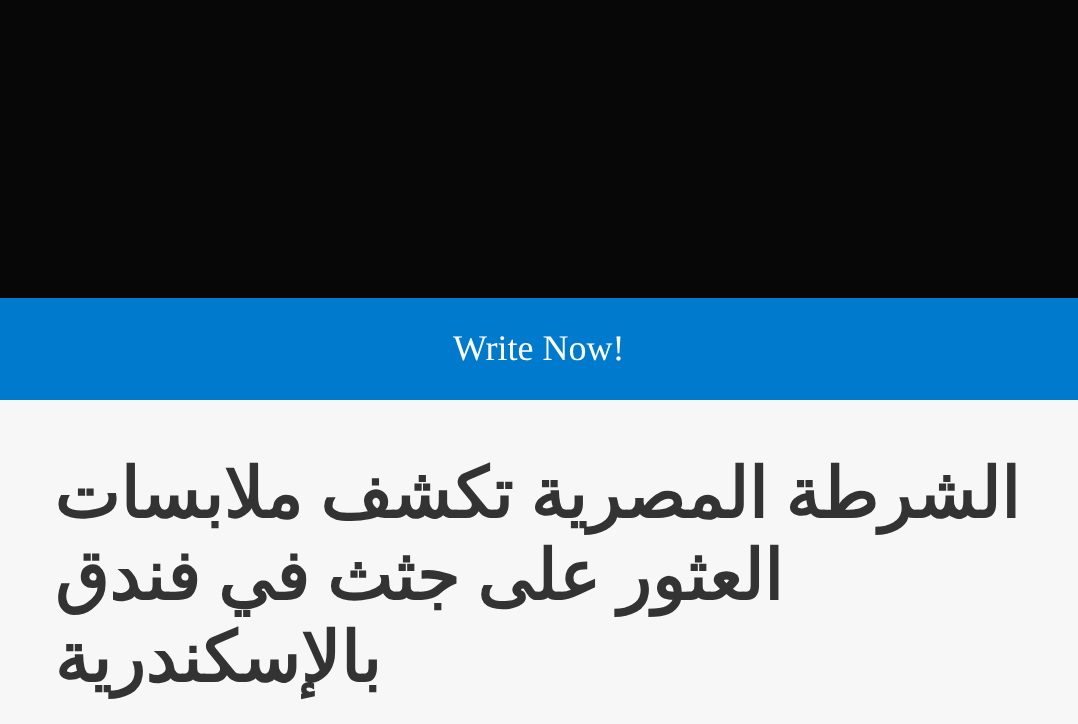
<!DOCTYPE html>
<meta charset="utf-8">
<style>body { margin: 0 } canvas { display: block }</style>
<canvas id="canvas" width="1078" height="724"></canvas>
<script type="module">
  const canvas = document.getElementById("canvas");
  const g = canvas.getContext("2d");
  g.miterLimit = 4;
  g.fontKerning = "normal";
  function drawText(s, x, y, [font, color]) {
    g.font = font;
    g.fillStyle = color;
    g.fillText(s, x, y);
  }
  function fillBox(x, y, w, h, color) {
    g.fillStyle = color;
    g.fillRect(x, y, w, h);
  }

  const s1 = ["36px Liberation Serif", "#FFFFFF"];
  const s2 = ["bold 70px DejaVu Sans", "#333333"];

  fillBox(0, 0, 1078, 724, "#F7F7F7");
  fillBox(0, 0, 1078, 298, "#070707");
  fillBox(0, 298, 1078, 102, "#007ACC");
  drawText("Write Now!", 453, 360, s1);
  g.wordSpacing = "-5px";
  g.direction = "rtl";
  drawText("الشرطة المصرية تكشف ملابسات", 1020, 518, s2);
  drawText("العثور على جثث في فندق", 783, 600, s2);
  g.wordSpacing = "0px";
  drawText("بالإسكندرية", 381, 682, s2);
</script>
